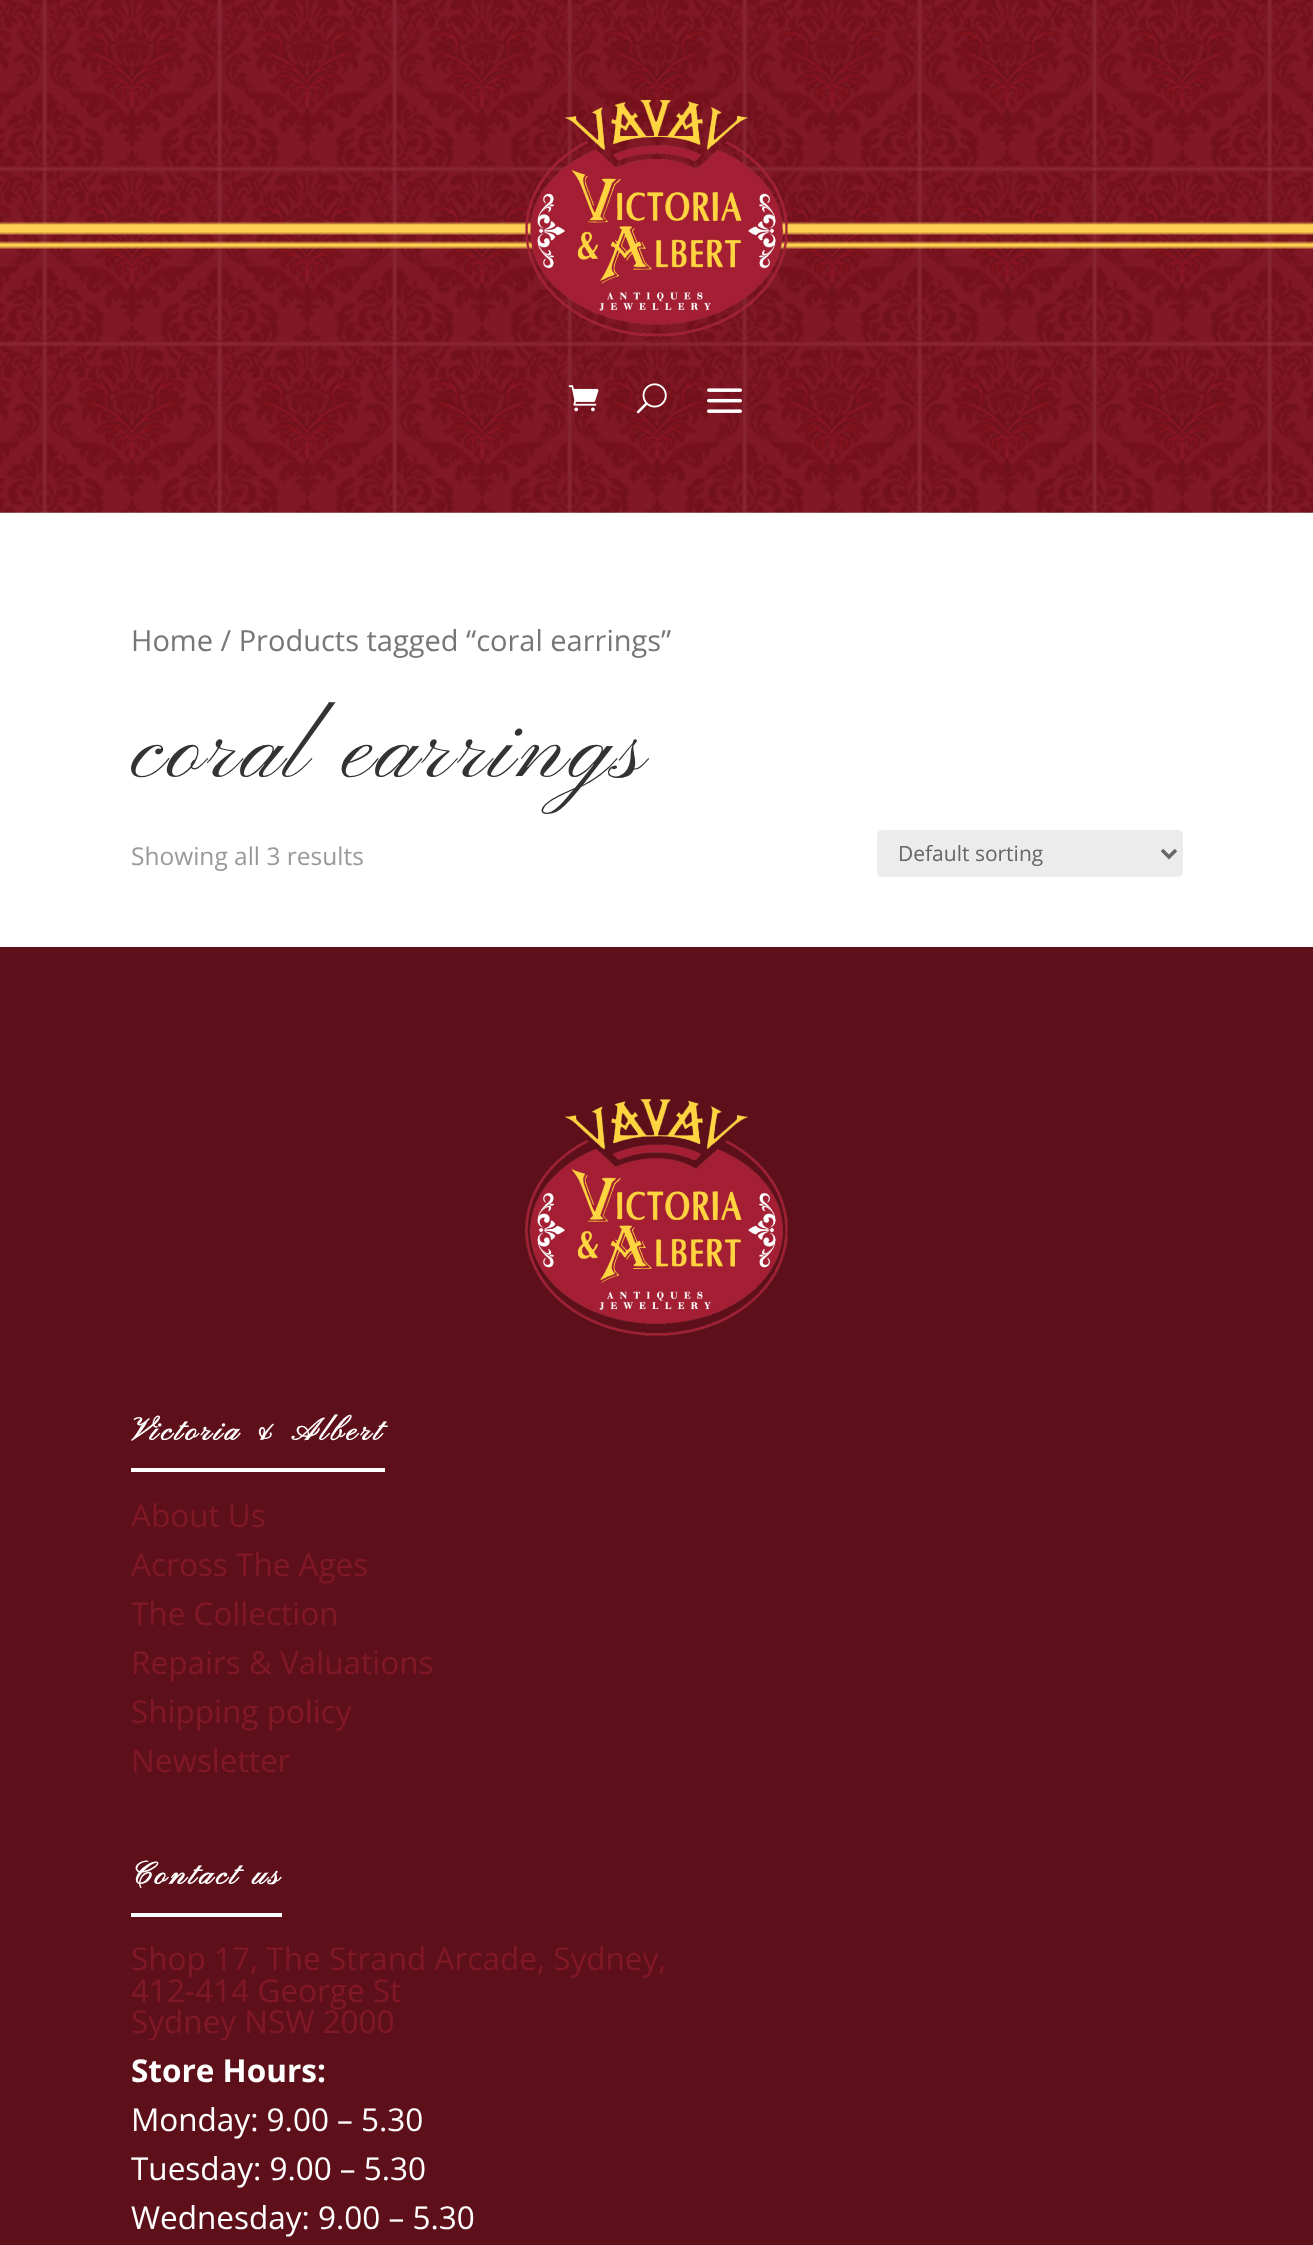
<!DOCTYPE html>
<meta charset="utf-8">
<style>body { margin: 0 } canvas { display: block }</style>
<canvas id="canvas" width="1313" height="2245"></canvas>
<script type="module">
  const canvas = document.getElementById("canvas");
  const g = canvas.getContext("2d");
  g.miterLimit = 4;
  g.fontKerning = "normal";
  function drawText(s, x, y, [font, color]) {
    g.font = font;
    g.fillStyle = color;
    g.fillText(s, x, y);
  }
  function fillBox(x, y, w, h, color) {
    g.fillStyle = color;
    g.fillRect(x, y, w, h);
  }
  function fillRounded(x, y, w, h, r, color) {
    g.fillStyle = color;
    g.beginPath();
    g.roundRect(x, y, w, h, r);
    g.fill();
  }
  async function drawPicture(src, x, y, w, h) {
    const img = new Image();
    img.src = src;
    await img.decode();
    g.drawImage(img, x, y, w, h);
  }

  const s1 = ["29px Open Sans", "#767676"];
  const s2 = ["96.25px Pinyon Script", "#333333"];
  const s3 = ["24.5px Open Sans", "#999999"];
  const s4 = ["21px Open Sans", "#666666"];
  const s5 = ["bold 31.5px Pinyon Script", "#FFFFFF"];
  const s6 = ["31.5px Open Sans", "#801826"];
  const s7 = ["bold 31.5px Open Sans", "#FFFFFF"];
  const s8 = ["31.5px Open Sans", "#FFFFFF"];

  fillBox(0, 0, 1313, 2245, "#FFFFFF");
  await drawPicture("pic1.png", 0, 0, 1313, 513);
  await drawPicture("pic3.png", 0, 221, 1313, 28);
  await drawPicture("pic2.png", 525, 99, 263, 238);
  await drawPicture("pic4.png", 568, 385, 31, 27);
  await drawPicture("pic5.png", 636, 383, 31, 31);
  await drawPicture("pic6.png", 707, 388, 35, 25);
  drawText("Home / Products tagged “coral earrings”", 131, 651, s1);
  g.letterSpacing = "3.5px";
  drawText("coral earrings", 131, 777, s2);
  g.letterSpacing = "0px";
  drawText("Showing all 3 results", 131, 865, s3);
  fillRounded(877, 830, 306, 47, 5, "#ECECEC");
  g.beginPath();
  g.moveTo(1162, 850);
  g.lineTo(1169, 857);
  g.lineTo(1176, 850);
  g.strokeStyle = "#666666";
  g.lineWidth = 3.5;
  g.stroke();
  drawText("Default sorting", 898, 861, s4);
  fillBox(0, 947, 1313, 1298, "#5E101A");
  await drawPicture("pic7.png", 525, 1099, 263, 237);
  fillBox(131, 1468, 254, 4, "#FFFFFF");
  g.letterSpacing = "3.5px";
  drawText("Victoria & Albert", 131, 1440, s5);
  g.letterSpacing = "0px";
  drawText("About Us", 131, 1527, s6);
  drawText("Across The Ages", 131, 1576, s6);
  drawText("The Collection", 131, 1625, s6);
  drawText("Repairs & Valuations", 131, 1674, s6);
  drawText("Shipping policy", 131, 1723, s6);
  drawText("Newsletter", 131, 1772, s6);
  fillBox(131, 1913, 151, 4, "#FFFFFF");
  g.letterSpacing = "3.5px";
  drawText("Contact us", 131, 1884, s5);
  g.letterSpacing = "0px";
  drawText("Shop 17, The Strand Arcade, Sydney,", 131, 1970, s6);
  drawText("412-414 George St", 131, 2002, s6);
  drawText("Sydney NSW 2000", 131, 2033, s6);
  drawText("Store Hours:", 131, 2082, s7);
  drawText("Monday: 9.00 – 5.30", 131, 2131, s8);
  drawText("Tuesday: 9.00 – 5.30", 131, 2180, s8);
  drawText("Wednesday: 9.00 – 5.30", 131, 2229, s8);
</script>
